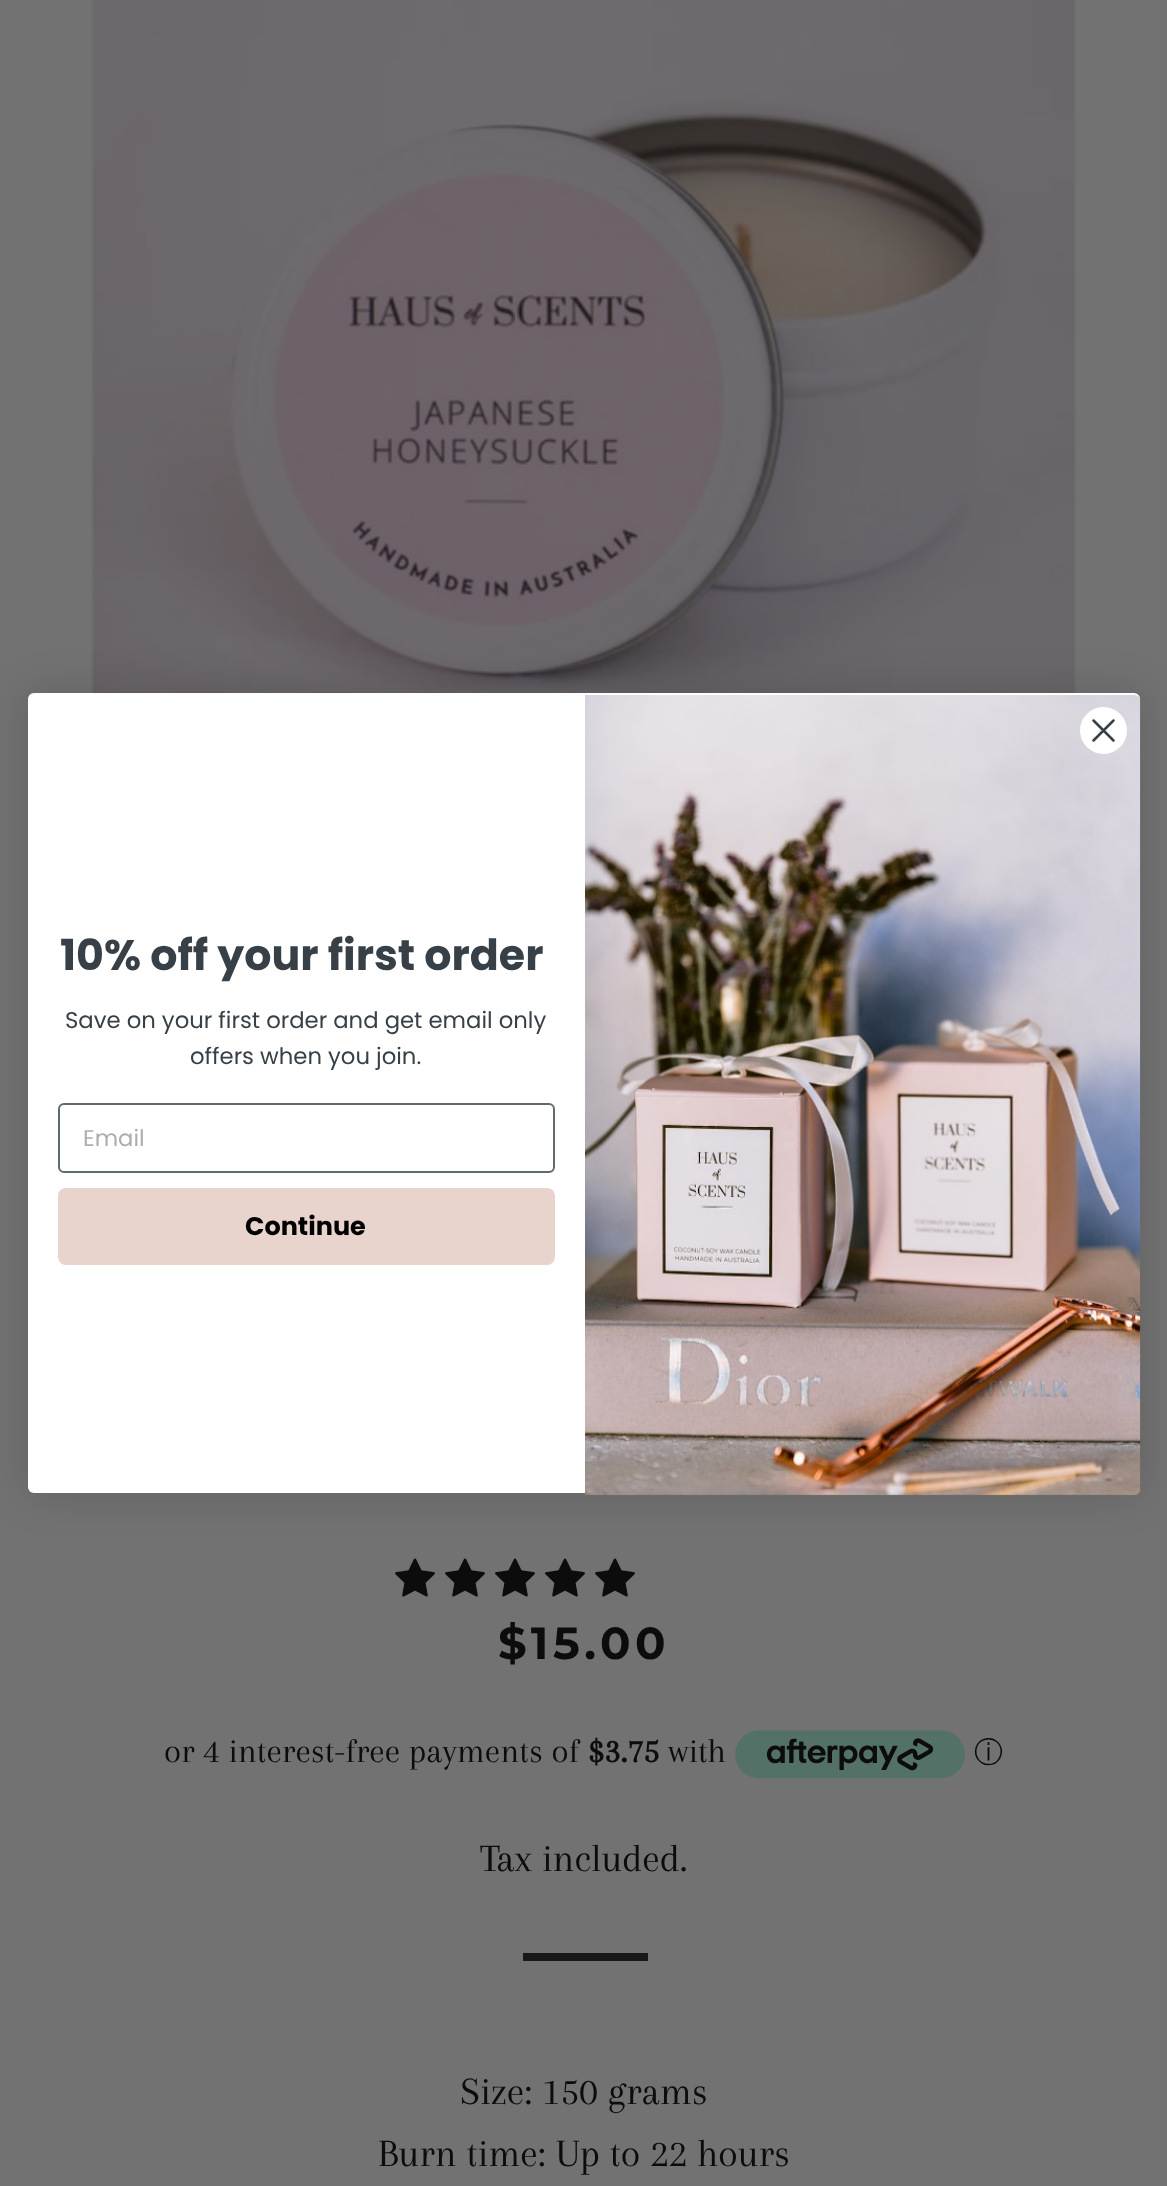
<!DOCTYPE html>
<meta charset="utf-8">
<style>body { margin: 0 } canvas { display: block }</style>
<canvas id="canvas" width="1167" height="2186"></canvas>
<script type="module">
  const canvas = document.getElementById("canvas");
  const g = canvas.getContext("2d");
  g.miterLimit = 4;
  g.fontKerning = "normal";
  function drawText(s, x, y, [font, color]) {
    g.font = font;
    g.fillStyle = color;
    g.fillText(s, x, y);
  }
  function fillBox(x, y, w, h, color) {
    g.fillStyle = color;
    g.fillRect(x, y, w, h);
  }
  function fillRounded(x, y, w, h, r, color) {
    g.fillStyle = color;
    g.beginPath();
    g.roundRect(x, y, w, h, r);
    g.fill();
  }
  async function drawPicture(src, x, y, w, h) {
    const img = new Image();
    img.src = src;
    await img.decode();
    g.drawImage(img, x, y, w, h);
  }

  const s1 = ["bold 42.75px Poppins", "#373F47"];
  const s2 = ["22.75px Poppins", "#373F47"];
  const s3 = ["22.75px Poppins", "#ADADAD"];
  const s4 = ["bold 25.5px Poppins", "#000000"];
  const s5 = ["bold 45px Montserrat", "#0C0C0C"];
  const s6 = ["35px Arapey", "#0C0C0C"];
  const s7 = ["bold 35px Arapey", "#0C0C0C"];
  const s8 = ["500 29px WenQuanYi Zen Hei", "#0C0C0C"];
  const s9 = ["40px Arapey", "#0C0C0C"];

  fillBox(0, 0, 1167, 2186, "#727272");
  await drawPicture("pic2.png", 91, 0, 985, 693);
  await drawPicture("pic3.png", 395, 1558, 40, 39);
  await drawPicture("pic3.png", 445, 1558, 40, 39);
  await drawPicture("pic3.png", 495, 1558, 40, 39);
  await drawPicture("pic3.png", 545, 1558, 40, 39);
  await drawPicture("pic3.png", 595, 1558, 40, 39);
  g.fillStyle = "rgba(0, 0, 0, 0.15)";
  g.filter = "blur(21.5px)";
  g.beginPath();
  g.roundRect(28, 693, 1112, 800, 6);
  g.fill();
  g.filter = "none";
  fillRounded(28, 693, 1112, 800, 6, "#FFFFFF");
  await drawPicture("pic1.png", 585, 695, 556, 801);
  g.beginPath();
  g.arc(1103.5, 730.5, 23.5, 0, Math.PI * 2);
  g.fill();
  g.beginPath();
  g.moveTo(1093.5, 720.5);
  g.lineTo(1113.5, 740.5);
  g.moveTo(1093.5, 740.5);
  g.lineTo(1113.5, 720.5);
  g.closePath();
  g.strokeStyle = "#373F47";
  g.lineWidth = 2.5;
  g.lineCap = "round";
  g.lineJoin = "round";
  g.stroke();
  drawText("10% off your first order", 60, 970, s1);
  drawText("Save on your first order and get email only", 65, 1028, s2);
  drawText("offers when you join.", 190, 1064, s2);
  g.beginPath();
  g.roundRect(59, 1104, 495, 68, 5);
  g.strokeStyle = "#606A72";
  g.lineWidth = 2;
  g.lineJoin = "miter";
  g.stroke();
  drawText("Email", 83, 1146, s3);
  fillRounded(58, 1188, 497, 77, 8, "#E9D4CD");
  drawText("Continue", 245, 1235, s4);
  g.letterSpacing = "4.5px";
  drawText("$15.00", 498, 1659, s5);
  g.letterSpacing = "0px";
  drawText("or 4 interest-free payments of", 164, 1762, s6);
  drawText("$3.75", 588, 1762, s7);
  drawText("with", 668, 1762, s6);
  await drawPicture("pic4.png", 735, 1730, 230, 49);
  drawText("ⓘ", 974, 1762, s8);
  drawText("Tax included.", 480, 1871, s9);
  fillBox(523, 1953, 125, 8, "#171818");
  drawText("Size: 150 grams", 460, 2104, s9);
  drawText("Burn time: Up to 22 hours", 378, 2166, s9);
</script>
